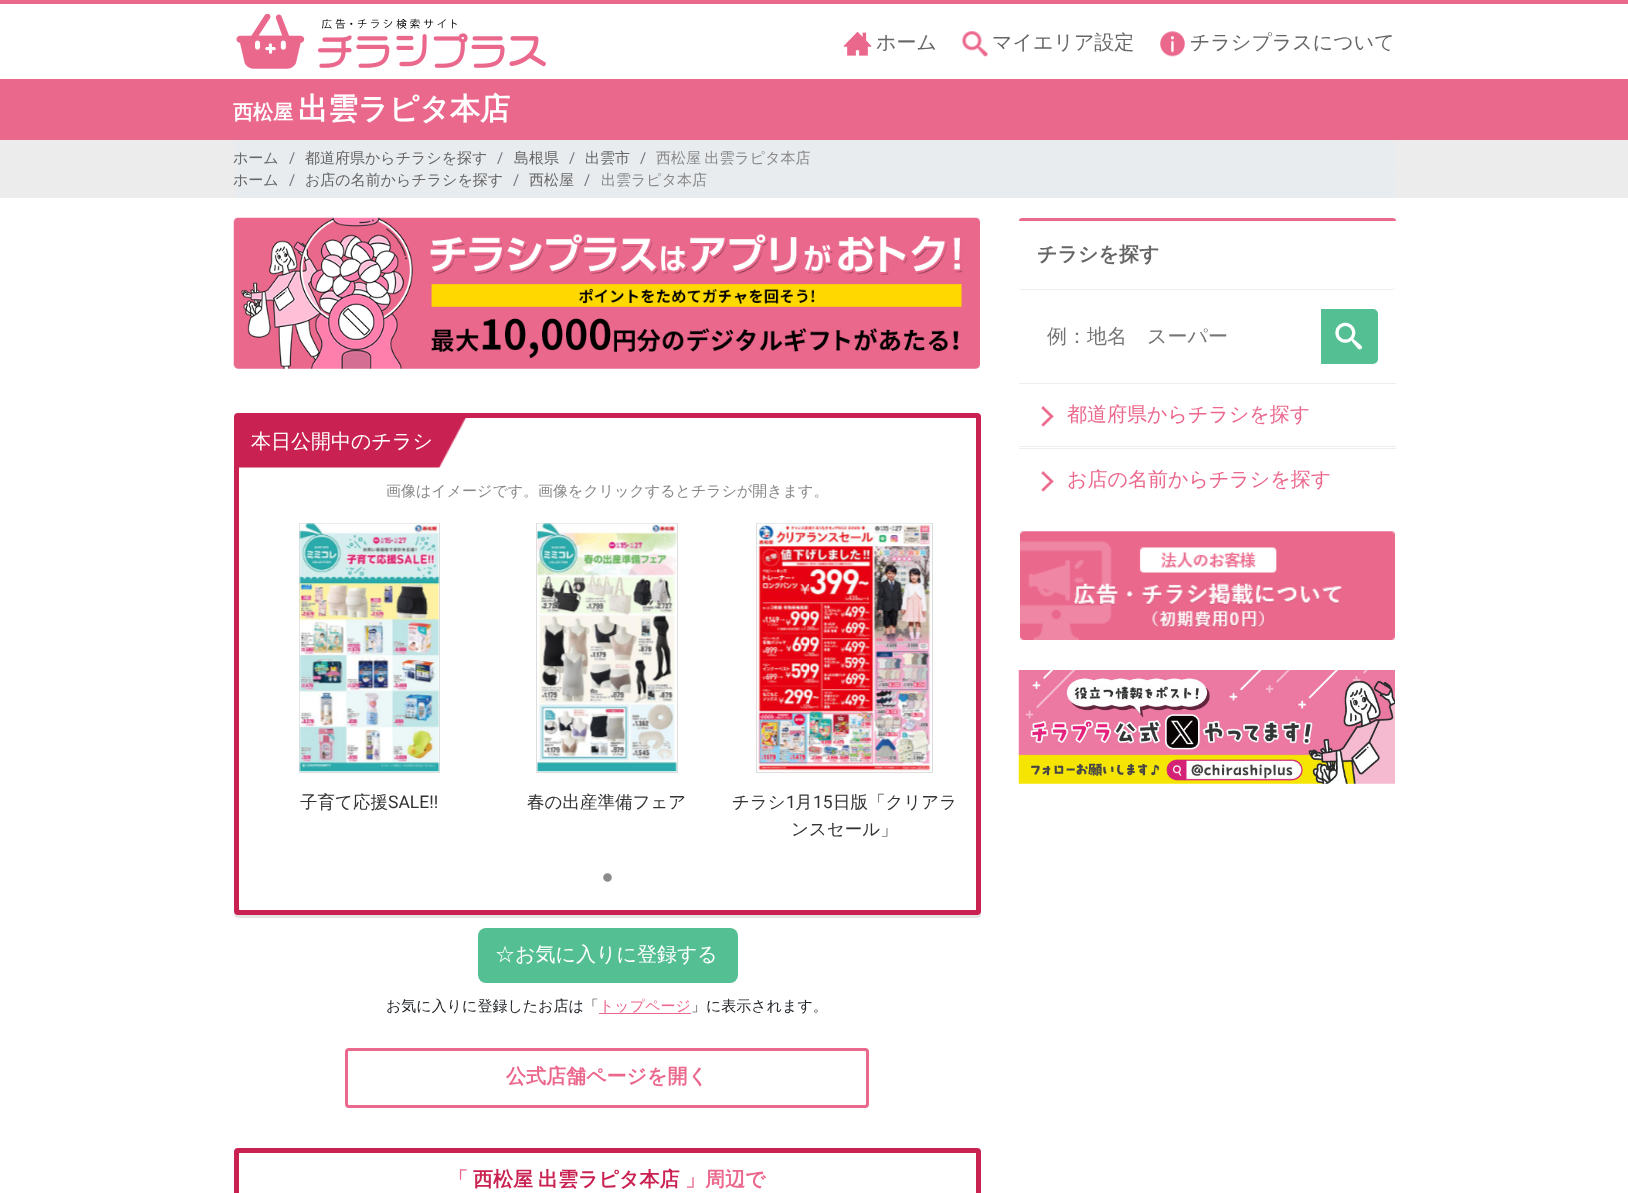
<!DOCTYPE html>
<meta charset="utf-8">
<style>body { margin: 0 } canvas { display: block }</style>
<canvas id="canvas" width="1628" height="1193"></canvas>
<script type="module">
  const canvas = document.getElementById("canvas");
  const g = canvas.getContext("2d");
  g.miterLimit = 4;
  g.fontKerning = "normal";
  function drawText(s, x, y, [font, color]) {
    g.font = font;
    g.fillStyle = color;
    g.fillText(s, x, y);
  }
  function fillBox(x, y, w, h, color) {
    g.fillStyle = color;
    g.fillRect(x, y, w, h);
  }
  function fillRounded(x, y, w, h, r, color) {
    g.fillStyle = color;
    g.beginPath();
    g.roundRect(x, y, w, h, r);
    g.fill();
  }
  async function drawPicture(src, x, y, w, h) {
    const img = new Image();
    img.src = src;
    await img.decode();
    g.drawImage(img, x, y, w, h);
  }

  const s1 = ["500 20px WenQuanYi Zen Hei", "#666666"];
  const s2 = ["bold 20px WenQuanYi Zen Hei", "#FFFFFF"];
  const s3 = ["bold 30px WenQuanYi Zen Hei", "#FFFFFF"];
  const s4 = ["500 15px WenQuanYi Zen Hei", "#666666"];
  const s5 = ["15px Roboto", "#6C757D"];
  const s6 = ["500 15px WenQuanYi Zen Hei", "#888888"];
  const s7 = ["bold 20px WenQuanYi Zen Hei", "#666666"];
  const s8 = ["500 20px WenQuanYi Zen Hei", "#757575"];
  const s9 = ["500 20px WenQuanYi Zen Hei", "#EB688D"];
  const s10 = ["500 20px WenQuanYi Zen Hei", "#FFFFFF"];
  const s11 = ["500 17.5px WenQuanYi Zen Hei", "#333333"];
  const s12 = ["17.5px Roboto", "#333333"];
  const s13 = ["500 15px WenQuanYi Zen Hei", "#212529"];
  const s14 = ["500 15px WenQuanYi Zen Hei", "#EB688D"];
  const s15 = ["bold 20px WenQuanYi Zen Hei", "#EB688D"];
  const s16 = ["bold 20px WenQuanYi Zen Hei", "#C92151"];

  fillBox(0, 0, 1628, 1193, "#FFFFFF");
  fillBox(0, 0, 1628, 4, "#EB688D");
  await drawPicture("pic1.png", 236, 14, 310, 55);
  await drawPicture("pic2.png", 843, 31, 29, 25);
  drawText("ホーム", 876, 49, s1);
  await drawPicture("pic3.png", 962, 31, 26, 26);
  drawText("マイエリア設定", 992, 49, s1);
  await drawPicture("pic4.png", 1160, 31, 25, 26);
  drawText("チラシプラスについて", 1190, 49, s1);
  fillBox(0, 79, 1628, 61, "#EB688D");
  drawText("西松屋", 233, 119, s2);
  drawText("出雲ラピタ本店", 298, 119, s3);
  fillBox(0, 140, 1628, 58, "#ECECEC");
  fillRounded(234, 140, 1162, 29, 5, "#E9ECEF");
  drawText("ホーム", 233, 163, s4);
  drawText("/", 289, 163, s5);
  drawText("都道府県からチラシを探す", 305, 163, s4);
  drawText("/", 497, 163, s5);
  drawText("島根県", 514, 163, s4);
  drawText("/", 569, 163, s5);
  drawText("出雲市", 585, 163, s4);
  drawText("/", 640, 163, s5);
  g.wordSpacing = "-1px";
  drawText("西松屋 出雲ラピタ本店", 656, 163, s6);
  fillRounded(234, 169, 1162, 29, 5, "#E9ECEF");
  g.wordSpacing = "0px";
  drawText("ホーム", 233, 185, s4);
  drawText("/", 289, 185, s5);
  drawText("お店の名前からチラシを探す", 305, 185, s4);
  drawText("/", 513, 185, s5);
  drawText("西松屋", 529, 185, s4);
  drawText("/", 584, 185, s5);
  drawText("出雲ラピタ本店", 601, 185, s6);
  g.fillStyle = "#EB688D";
  g.beginPath();
  g.moveTo(1022, 218);
  g.bezierCurveTo(1020, 218, 1019, 219, 1019, 221);
  g.lineTo(1396, 221);
  g.bezierCurveTo(1396, 219, 1395, 218, 1392, 218);
  g.closePath();
  g.fill();
  g.fillStyle = "#EEEEEE";
  g.beginPath();
  g.moveTo(1392, 290);
  g.bezierCurveTo(1395, 290, 1396, 288, 1396, 286);
  g.bezierCurveTo(1396, 288, 1395, 289, 1392, 289);
  g.lineTo(1022, 289);
  g.bezierCurveTo(1020, 289, 1019, 288, 1019, 286);
  g.bezierCurveTo(1019, 288, 1020, 290, 1022, 290);
  g.closePath();
  g.fill();
  drawText("チラシを探す", 1037, 261, s7);
  drawText("例：地名　スーパー", 1047, 343, s8);
  g.fillStyle = "#55BF94";
  g.beginPath();
  g.roundRect(1321, 309, 57, 55, [0, 5, 5, 0]);
  g.fill();
  await drawPicture("pic5.png", 1335, 322, 27, 28);
  fillBox(1019, 383, 377, 1, "#EEEEEE");
  fillBox(1019, 446, 377, 1, "#EEEEEE");
  await drawPicture("pic6.png", 1041, 406, 13, 21);
  drawText("都道府県からチラシを探す", 1067, 421, s9);
  fillBox(1019, 448, 377, 1, "#EEEEEE");
  await drawPicture("pic6.png", 1041, 471, 13, 21);
  drawText("お店の名前からチラシを探す", 1067, 486, s9);
  await drawPicture("pic7.png", 1020, 531, 375, 109);
  await drawPicture("pic8.png", 1018, 670, 377, 114);
  await drawPicture("pic9.png", 233, 217, 747, 152);
  g.save();
  g.beginPath();
  g.moveTo(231, 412);
  g.lineTo(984, 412);
  g.lineTo(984, 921);
  g.lineTo(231, 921);
  g.closePath();
  g.moveTo(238, 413);
  g.lineTo(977, 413);
  g.bezierCurveTo(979, 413, 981, 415, 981, 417);
  g.lineTo(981, 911);
  g.bezierCurveTo(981, 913, 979, 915, 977, 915);
  g.lineTo(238, 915);
  g.bezierCurveTo(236, 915, 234, 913, 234, 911);
  g.lineTo(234, 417);
  g.bezierCurveTo(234, 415, 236, 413, 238, 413);
  g.closePath();
  g.clip("evenodd");
  g.fillStyle = "rgba(0, 0, 0, 0.1)";
  g.filter = "blur(0.5px)";
  g.beginPath();
  g.roundRect(234, 415, 747, 503, 4);
  g.fill();
  g.filter = "none";
  g.restore();
  g.beginPath();
  g.roundRect(236.5, 415.5, 742, 497, 1.5);
  g.strokeStyle = "#C92151";
  g.lineWidth = 5;
  g.stroke();
  await drawPicture("pic10.png", 239, 418, 228, 50);
  drawText("本日公開中のチラシ", 251, 448, s10);
  drawText("画像はイメージです。画像をクリックするとチラシが開きます。", 386, 496, s6);
  g.strokeStyle = "#DDDDDD";
  g.lineWidth = 1;
  g.strokeRect(299.5, 523.5, 140, 249);
  await drawPicture("pic11.png", 299, 523, 141, 249);
  drawText("子育て応援", 300, 808, s11);
  drawText("SALE!!", 388, 808, s12);
  g.strokeRect(536.5, 523.5, 141, 249);
  await drawPicture("pic12.png", 537, 523, 140, 249);
  drawText("春の出産準備フェア", 527, 808, s11);
  g.strokeRect(756.5, 523.5, 176, 249);
  await drawPicture("pic13.png", 757, 523, 175, 248);
  drawText("チラシ", 732, 808, s11);
  drawText("1", 786, 808, s12);
  drawText("月", 795, 808, s11);
  drawText("15", 813, 808, s12);
  drawText("日版「クリアラ", 833, 808, s11);
  drawText("ンスセール」", 791, 835, s11);
  await drawPicture("pic14.png", 603, 873, 9, 9);
  fillRounded(478, 928, 260, 55, 8, "#55BF94");
  drawText("☆お気に入りに登録する", 495, 961, s10);
  drawText("お気に入りに登録したお店は「", 386, 1011, s13);
  drawText("トップページ", 599, 1011, s14);
  fillBox(599, 1013, 92, 1, "#EB688D");
  drawText("」に表示されます。", 691, 1011, s13);
  g.beginPath();
  g.roundRect(346.5, 1049.5, 521, 57, 2.5);
  g.strokeStyle = "#EB688D";
  g.lineWidth = 3;
  g.stroke();
  drawText("公式店舗ページを開く", 506, 1083, s15);
  g.beginPath();
  g.roundRect(236.5, 1150.5, 742, 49, 1.5);
  g.strokeStyle = "#C92151";
  g.lineWidth = 5;
  g.stroke();
  drawText("「", 448, 1186, s15);
  drawText("西松屋", 473, 1186, s16);
  drawText("出雲ラピタ本店", 538, 1186, s16);
  drawText("」周辺で", 685, 1186, s15);
</script>
